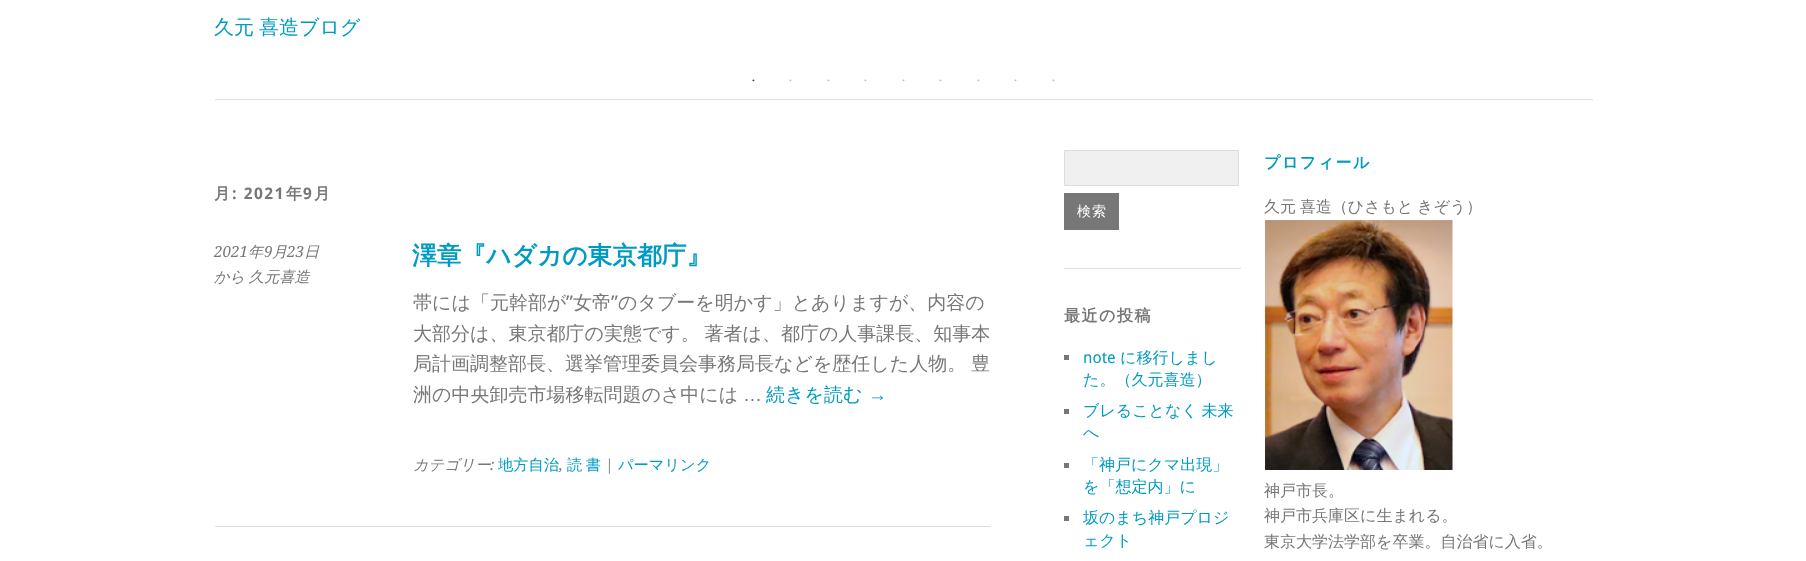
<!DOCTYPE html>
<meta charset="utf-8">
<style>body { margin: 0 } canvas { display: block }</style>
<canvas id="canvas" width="1806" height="561"></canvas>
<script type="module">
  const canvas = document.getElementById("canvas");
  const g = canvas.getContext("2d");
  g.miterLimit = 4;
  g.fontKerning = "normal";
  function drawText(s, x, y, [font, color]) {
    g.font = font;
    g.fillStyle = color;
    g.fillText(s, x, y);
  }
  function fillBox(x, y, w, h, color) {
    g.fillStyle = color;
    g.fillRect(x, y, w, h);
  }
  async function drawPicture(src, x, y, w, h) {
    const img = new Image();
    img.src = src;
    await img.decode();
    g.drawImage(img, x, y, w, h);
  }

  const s1 = ["500 20px WenQuanYi Zen Hei", "#009BC2"];
  const s2 = ["8px Liberation Serif", "#404040"];
  const s3 = ["8px Liberation Serif", "#BFBFBF"];
  const s4 = ["bold 16px WenQuanYi Zen Hei", "#777777"];
  const s5 = ["bold 16px Droid Sans", "#777777"];
  const s6 = ["italic 15.25px Droid Serif", "#777777"];
  const s7 = ["italic 500 15.25px WenQuanYi Zen Hei", "#777777"];
  const s8 = ["bold 24.75px WenQuanYi Zen Hei", "#009BC2"];
  const s9 = ["500 19px WenQuanYi Zen Hei", "#777777"];
  const s10 = ["19px Droid Sans", "#777777"];
  const s11 = ["19px Liberation Sans", "#777777"];
  const s12 = ["500 19px WenQuanYi Zen Hei", "#009BC2"];
  const s13 = ["19px Liberation Sans", "#009BC2"];
  const s14 = ["500 15.25px WenQuanYi Zen Hei", "#009BC2"];
  const s15 = ["500 14px WenQuanYi Zen Hei", "#FFFFFF"];
  const s16 = ["16px Droid Sans", "#009BC2"];
  const s17 = ["500 16px WenQuanYi Zen Hei", "#009BC2"];
  const s18 = ["bold 16px WenQuanYi Zen Hei", "#009BC2"];
  const s19 = ["500 16px WenQuanYi Zen Hei", "#777777"];

  fillBox(0, 0, 1806, 561, "#FFFFFF");
  g.wordSpacing = "-1px";
  drawText("久元 喜造ブログ", 214, 34, s1);
  g.wordSpacing = "0px";
  drawText("•", 752, 83, s2);
  drawText("•", 789, 83, s3);
  drawText("•", 827, 83, s3);
  drawText("•", 864, 83, s3);
  drawText("•", 902, 83, s3);
  drawText("•", 939, 83, s3);
  drawText("•", 977, 83, s3);
  drawText("•", 1014, 83, s3);
  drawText("•", 1052, 83, s3);
  fillBox(215, 99, 1378, 1, "#DDDDDD");
  g.letterSpacing = "1.5px";
  drawText("月", 214, 199, s4);
  drawText(": 2021", 232, 199, s5);
  drawText("年", 286, 199, s4);
  drawText("9", 303, 199, s5);
  drawText("月", 314, 199, s4);
  fillBox(215, 526, 776, 1, "#DDDDDD");
  g.letterSpacing = "0px";
  drawText("2021", 214, 257, s6);
  drawText("年", 248, 257, s7);
  drawText("9", 264, 257, s6);
  drawText("月", 272, 257, s7);
  drawText("23", 287, 257, s6);
  drawText("日", 304, 257, s7);
  g.wordSpacing = "-1px";
  drawText("から 久元喜造", 214, 282, s7);
  g.wordSpacing = "0px";
  drawText("澤章『ハダカの東京都庁』", 412, 264, s8);
  drawText("帯には「元幹部が", 413, 309, s9);
  drawText("”", 566, 309, s10);
  drawText("女帝", 573, 309, s9);
  drawText("”", 611, 309, s10);
  drawText("のタブーを明かす」とありますが、内容の", 618, 309, s9);
  g.wordSpacing = "-1px";
  drawText("大部分は、東京都庁の実態です。 著者は、都庁の人事課長、知事本", 413, 340, s9);
  drawText("局計画調整部長、選挙管理委員会事務局長などを歴任した人物。 豊", 413, 370, s9);
  g.wordSpacing = "0px";
  drawText("洲の中央卸売市場移転問題のさ中には", 413, 401, s9);
  drawText("…", 743, 401, s11);
  drawText("続きを読む", 766, 401, s12);
  drawText("→", 868, 401, s13);
  drawText("カテゴリー", 413, 470, s7);
  drawText(":", 490, 470, s6);
  drawText("地方自治", 498, 470, s14);
  g.wordSpacing = "-1px";
  drawText("読 書", 567, 470, s14);
  g.wordSpacing = "0px";
  drawText("|", 605, 470, s6);
  drawText("パーマリンク", 618, 470, s14);
  drawText(",", 559, 470, s6);
  fillBox(1064, 268, 177, 1, "#DDDDDD");
  g.fillStyle = "#F0F0F0";
  g.beginPath();
  g.rect(1064.5, 150.5, 174, 35);
  g.fill();
  g.strokeStyle = "#DDDDDD";
  g.stroke();
  fillBox(1064, 193, 55, 37, "#777777");
  g.letterSpacing = "1px";
  drawText("検索", 1077, 216, s15);
  g.letterSpacing = "1.5px";
  drawText("最近の投稿", 1064, 321, s4);
  fillBox(1064, 355, 5, 5, "#777777");
  g.letterSpacing = "0px";
  drawText("note", 1083, 363, s16);
  drawText("に移行しまし", 1120, 363, s17);
  drawText("た。（久元喜造）", 1083, 385, s17);
  fillBox(1064, 409, 5, 5, "#777777");
  g.wordSpacing = "-1px";
  drawText("ブレることなく 未来", 1083, 416, s17);
  g.wordSpacing = "0px";
  drawText("へ", 1083, 438, s17);
  fillBox(1064, 463, 5, 5, "#777777");
  drawText("「神戸にクマ出現」", 1083, 470, s17);
  drawText("を「想定内」に", 1083, 492, s17);
  fillBox(1064, 516, 5, 5, "#777777");
  drawText("坂のまち神戸プロジ", 1083, 523, s17);
  drawText("ェクト", 1083, 546, s17);
  g.letterSpacing = "1.5px";
  drawText("プロフィール", 1264, 168, s18);
  g.letterSpacing = "0px";
  g.wordSpacing = "-1px";
  drawText("久元 喜造（ひさもと きぞう）", 1264, 212, s19);
  await drawPicture("pic1.png", 1265, 220, 188, 250);
  g.wordSpacing = "0px";
  drawText("神戸市長。", 1264, 496, s19);
  drawText("神戸市兵庫区に生まれる。", 1264, 521, s19);
  drawText("東京大学法学部を卒業。自治省に入省。", 1264, 547, s19);
</script>
